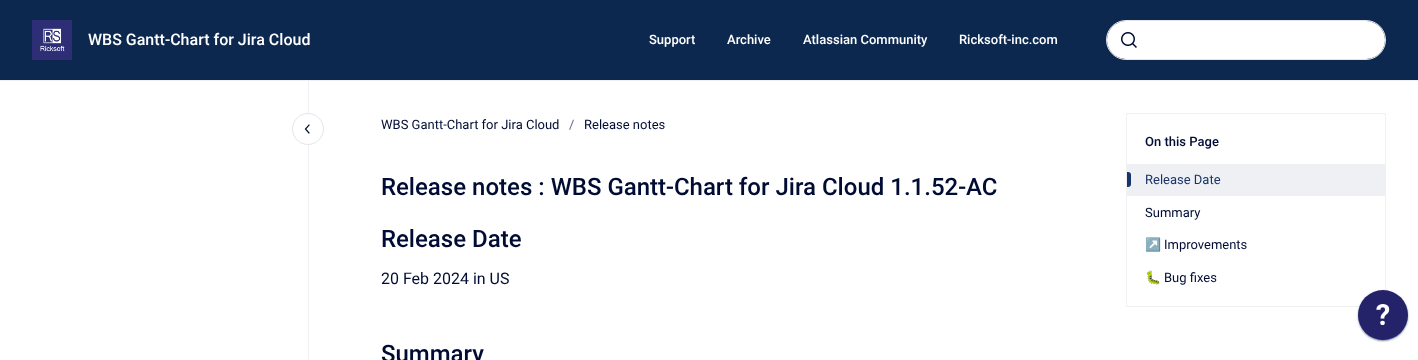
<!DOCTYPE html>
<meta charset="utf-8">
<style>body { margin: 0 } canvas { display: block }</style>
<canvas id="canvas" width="1418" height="360"></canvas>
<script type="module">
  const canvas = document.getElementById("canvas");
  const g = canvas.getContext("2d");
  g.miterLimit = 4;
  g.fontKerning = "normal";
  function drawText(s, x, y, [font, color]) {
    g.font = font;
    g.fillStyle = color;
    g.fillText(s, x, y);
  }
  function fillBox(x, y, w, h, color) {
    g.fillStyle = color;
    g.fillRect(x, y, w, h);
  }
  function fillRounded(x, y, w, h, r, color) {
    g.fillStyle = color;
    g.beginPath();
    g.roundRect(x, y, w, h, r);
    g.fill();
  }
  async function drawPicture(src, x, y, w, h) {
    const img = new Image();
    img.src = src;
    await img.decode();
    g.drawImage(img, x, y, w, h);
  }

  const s1 = ["500 16px Roboto", "#FFFFFF"];
  const s2 = ["500 13px Roboto", "#FFFFFF"];
  const s3 = ["13px Roboto", "#000C34"];
  const s4 = ["13px Roboto", "#5D6B8F"];
  const s5 = ["500 24px Roboto", "#000C34"];
  const s6 = ["16px Roboto", "#000C34"];
  const s7 = ["500 13px Roboto", "#000C34"];
  const s8 = ["13px Roboto", "#193468"];
  const s9 = ["13px Noto Color Emoji", "#000C34"];

  fillBox(0, 0, 1418, 360, "#FFFFFF");
  fillBox(0, 0, 1418, 80, "#0D284F");
  fillBox(0, 80, 1418, 1, "#EFF0F4");
  await drawPicture("pic1.png", 32, 20, 40, 40);
  drawText("WBS Gantt-Chart for Jira Cloud", 88, 45, s1);
  drawText("Support", 649, 44, s2);
  drawText("Archive", 727, 44, s2);
  drawText("Atlassian Community", 803, 44, s2);
  drawText("Ricksoft-inc.com", 959, 44, s2);
  g.beginPath();
  g.roundRect(1106.5, 20.5, 279, 39, 19.5);
  g.strokeStyle = "#E2E5EB";
  g.stroke();
  fillRounded(1107, 21, 278, 38, 19, "#FFFFFF");
  await drawPicture("pic2.png", 1121, 32, 16, 16);
  fillBox(308, 81, 1, 279, "#EFF0F4");
  g.fillStyle = "#FFFFFF";
  g.beginPath();
  g.moveTo(308, 145);
  g.bezierCurveTo(299, 145, 292, 138, 292, 129);
  g.bezierCurveTo(292, 120, 299, 113, 308, 113);
  g.bezierCurveTo(317, 113, 324, 120, 324, 129);
  g.bezierCurveTo(324, 138, 317, 145, 308, 145);
  g.closePath();
  g.fill();
  g.beginPath();
  g.moveTo(308, 144.5);
  g.bezierCurveTo(299.5, 144.5, 292.5, 137.5, 292.5, 129);
  g.bezierCurveTo(292.5, 120.5, 299.5, 113.5, 308, 113.5);
  g.bezierCurveTo(316.5, 113.5, 323.5, 120.5, 323.5, 129);
  g.bezierCurveTo(323.5, 137.5, 316.5, 144.5, 308, 144.5);
  g.closePath();
  g.stroke();
  g.beginPath();
  g.moveTo(309, 133);
  g.lineTo(305.5, 129);
  g.lineTo(309, 125);
  g.strokeStyle = "#000C34";
  g.lineWidth = 1.2;
  g.lineCap = "square";
  g.stroke();
  drawText("WBS Gantt-Chart for Jira Cloud", 381, 129, s3);
  drawText("/", 569, 129, s4);
  drawText("Release notes", 584, 129, s3);
  drawText("Release notes : WBS Gantt-Chart for Jira Cloud 1.1.52-AC", 381, 195, s5);
  drawText("Release Date", 381, 247, s5);
  drawText("20 Feb 2024 in US", 381, 284, s6);
  drawText("Summary", 381, 362, s5);
  g.beginPath();
  g.roundRect(1126.5, 113.5, 259, 193, 0.5);
  g.strokeStyle = "#EFF0F4";
  g.lineWidth = 1;
  g.stroke();
  drawText("On this Page", 1145, 146, s7);
  fillBox(1127, 164, 258, 32, "#EFF0F4");
  g.fillStyle = "#193468";
  g.beginPath();
  g.roundRect(1127, 172, 4, 15, [0, 3, 3, 0]);
  g.fill();
  drawText("Release Date", 1145, 184, s8);
  drawText("Summary", 1145, 217, s3);
  drawText("↗️", 1145, 249, s9);
  drawText("Improvements", 1164, 249, s3);
  drawText("🐛", 1145, 282, s9);
  drawText("Bug fixes", 1164, 282, s3);
  await drawPicture("pic3.png", 1356, 289, 54, 54);
</script>
